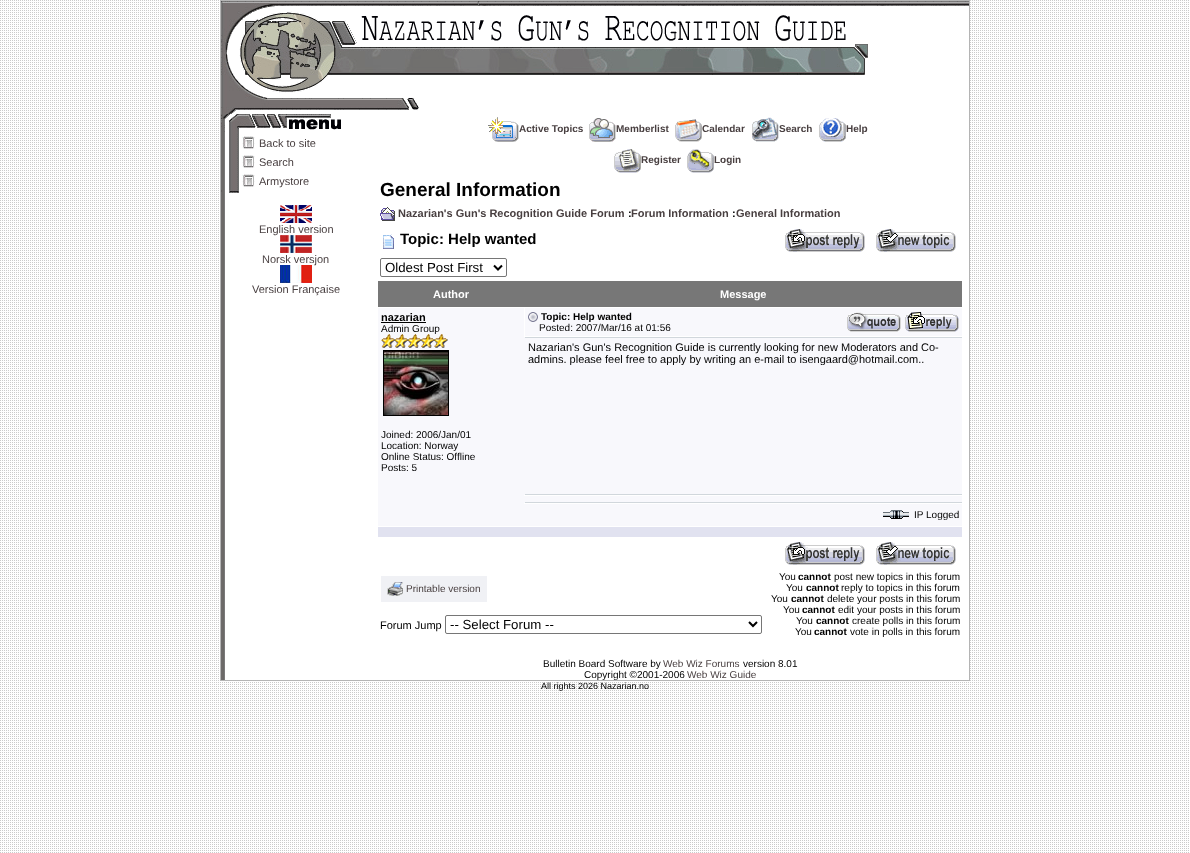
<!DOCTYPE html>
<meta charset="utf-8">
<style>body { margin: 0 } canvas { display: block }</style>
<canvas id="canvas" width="1190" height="853"></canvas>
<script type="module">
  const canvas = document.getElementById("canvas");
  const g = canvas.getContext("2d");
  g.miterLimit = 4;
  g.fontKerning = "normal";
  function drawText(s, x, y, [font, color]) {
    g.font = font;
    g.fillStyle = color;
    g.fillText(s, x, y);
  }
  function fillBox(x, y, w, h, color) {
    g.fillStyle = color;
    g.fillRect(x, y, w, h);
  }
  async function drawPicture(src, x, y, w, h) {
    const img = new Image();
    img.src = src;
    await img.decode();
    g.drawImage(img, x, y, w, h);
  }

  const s1 = ["11px Liberation Sans", "#483F40"];
  const s2 = ["bold 10px Liberation Sans", "#483F40"];
  const s3 = ["bold 19px Liberation Sans", "#000000"];
  const s4 = ["bold 11px Liberation Sans", "#483F40"];
  const s5 = ["bold 11px Liberation Sans", "#000000"];
  const s6 = ["bold 15px Liberation Sans", "#000000"];
  const s7 = ["13.25px Liberation Sans", "#000000"];
  const s8 = ["bold 11px Liberation Sans", "#FFFFFF"];
  const s9 = ["10px Liberation Sans", "#000000"];
  const s10 = ["bold 10px Liberation Sans", "#000000"];
  const s11 = ["11px Liberation Sans", "#000000"];
  const s12 = ["10px Liberation Sans", "#483F40"];
  const s13 = ["9px Liberation Sans", "#000000"];

  fillBox(0, 0, 1190, 853, "#FFFFFF");
  await drawPicture("pic1.png", 0, 0, 1189, 853);
  await drawPicture("pic2.png", 221, 1, 748, 113);
  fillBox(220, 0, 750, 1, "#B4B4B4");
  fillBox(969, 0, 1, 681, "#B4B4B4");
  fillBox(220, 0, 1, 114, "#B4B4B4");
  await drawPicture("pic3.png", 221, 114, 748, 566);
  fillBox(220, 680, 750, 1, "#B4B4B4");
  fillBox(220, 114, 1, 567, "#B4B4B4");
  await drawPicture("pic4.png", 229, 132, 10, 58);
  await drawPicture("pic5.png", 221, 114, 120, 18);
  await drawPicture("pic6.png", 237, 133, 18, 16);
  drawText("Back to site", 259, 147, s1);
  await drawPicture("pic7.png", 237, 155, 18, 16);
  drawText("Search", 259, 166, s1);
  await drawPicture("pic6.png", 237, 171, 18, 16);
  drawText("Armystore", 259, 185, s1);
  await drawPicture("pic8.png", 221, 190, 18, 5);
  await drawPicture("pic9.png", 280, 205, 32, 18);
  drawText("English version", 259, 233, s1);
  await drawPicture("pic10.png", 280, 235, 32, 18);
  drawText("Norsk versjon", 262, 263, s1);
  await drawPicture("pic11.png", 280, 265, 32, 18);
  drawText("Version Française", 252, 293, s1);
  await drawPicture("pic12.png", 488, 117, 31, 25);
  drawText("Active Topics", 519, 132, s2);
  await drawPicture("pic13.png", 589, 118, 27, 24);
  drawText("Memberlist", 616, 132, s2);
  await drawPicture("pic14.png", 675, 119, 27, 23);
  drawText("Calendar", 702, 132, s2);
  await drawPicture("pic15.png", 752, 117, 27, 25);
  drawText("Search", 779, 132, s2);
  await drawPicture("pic16.png", 819, 118, 27, 24);
  drawText("Help", 846, 132, s2);
  await drawPicture("pic17.png", 614, 149, 27, 24);
  drawText("Register", 641, 163, s2);
  await drawPicture("pic18.png", 687, 149, 27, 24);
  drawText("Login", 714, 163, s2);
  drawText("General Information", 380, 196, s3);
  await drawPicture("pic19.png", 380, 207, 15, 14);
  drawText("Nazarian's Gun's Recognition Guide Forum", 398, 217, s4);
  drawText(":", 628, 217, s5);
  drawText("Forum Information", 631, 217, s4);
  drawText(":", 732, 217, s5);
  drawText("General Information", 736, 217, s4);
  await drawPicture("pic20.png", 383, 234, 11, 15);
  drawText("Topic: Help wanted", 400, 244, s6);
  await drawPicture("pic21.png", 785, 229, 80, 23);
  await drawPicture("pic22.png", 876, 229, 80, 23);
  g.beginPath();
  g.roundRect(380.5, 258.5, 126, 18, 1.5);
  g.strokeStyle = "#767676";
  g.stroke();
  g.beginPath();
  g.moveTo(494, 265.5);
  g.lineTo(498, 269.5);
  g.lineTo(502, 265.5);
  g.strokeStyle = "#000000";
  g.lineWidth = 2;
  g.stroke();
  drawText("Oldest Post First", 385, 272, s7);
  fillBox(378, 281, 584, 26, "#777777");
  drawText("Author", 433, 298, s8);
  drawText("Message", 720, 298, s8);
  fillBox(378, 308, 146, 196, "#F8F8FC");
  drawText("nazarian", 381, 321, s5);
  fillBox(381, 322, 45, 1, "#000000");
  drawText("Admin Group", 381, 332, s9);
  await drawPicture("pic23.png", 381, 334, 67, 14);
  g.lineWidth = 1;
  g.strokeRect(383.5, 350.5, 65, 65);
  await drawPicture("pic24.png", 384, 351, 64, 64);
  drawText("Joined: 2006/Jan/01", 381, 438, s9);
  drawText("Location: Norway", 381, 449, s9);
  drawText("Online Status: Offline", 381, 460, s9);
  drawText("Posts: 5", 381, 471, s9);
  fillBox(525, 308, 437, 28, "#F8F8FC");
  await drawPicture("pic25.png", 528, 312, 10, 10);
  drawText("Topic: Help wanted", 541, 320, s10);
  await drawPicture("pic26.png", 847, 312, 54, 20);
  await drawPicture("pic27.png", 905, 312, 54, 20);
  drawText("Posted: 2007/Mar/16 at 01:56", 539, 331, s9);
  fillBox(524, 337, 438, 158, "#F8F8FC");
  fillBox(525, 337, 437, 1, "#D1D7DC");
  fillBox(525, 494, 437, 1, "#D1D7DC");
  drawText("Nazarian's Gun's Recognition Guide is currently looking for new Moderators and Co-", 528, 351, s11);
  g.save();
  g.beginPath();
  g.rect(528, 341, 431, 24);
  g.clip();
  drawText("admins. please feel free to apply by writing an e-mail to isengaard@hotmail.com..", 528, 363, s11);
  g.restore();
  fillBox(524, 496, 438, 7, "#F8F8FC");
  fillBox(525, 502, 437, 1, "#D1D7DC");
  fillBox(378, 504, 584, 22, "#F8F8FC");
  await drawPicture("pic28.png", 883, 510, 26, 9);
  drawText("IP Logged", 914, 518, s9);
  fillBox(378, 527, 584, 10, "#E1E2F0");
  await drawPicture("pic21.png", 785, 542, 80, 23);
  await drawPicture("pic22.png", 876, 542, 80, 23);
  fillBox(381, 576, 106, 26, "#F0F1F5");
  await drawPicture("pic29.png", 387, 582, 16, 14);
  drawText("Printable version", 406, 592, s12);
  drawText("Forum Jump", 380, 629, s11);
  g.beginPath();
  g.roundRect(445.5, 615.5, 316, 18, 1.5);
  g.strokeStyle = "#767676";
  g.stroke();
  g.beginPath();
  g.moveTo(749, 622);
  g.lineTo(753, 626);
  g.lineTo(757, 622);
  g.strokeStyle = "#000000";
  g.lineWidth = 2;
  g.stroke();
  drawText("-- Select Forum --", 450, 629, s7);
  drawText("You", 779, 580, s9);
  drawText("cannot", 798, 580, s10);
  drawText("post new topics in this forum", 834, 580, s9);
  drawText("You", 786, 591, s9);
  drawText("cannot", 806, 591, s10);
  drawText("reply to topics in this forum", 841, 591, s9);
  drawText("You", 771, 602, s9);
  drawText("cannot", 791, 602, s10);
  drawText("delete your posts in this forum", 827, 602, s9);
  drawText("You", 783, 613, s9);
  drawText("cannot", 802, 613, s10);
  drawText("edit your posts in this forum", 838, 613, s9);
  drawText("You", 796, 624, s9);
  drawText("cannot", 816, 624, s10);
  drawText("create polls in this forum", 852, 624, s9);
  drawText("You", 795, 635, s9);
  drawText("cannot", 814, 635, s10);
  drawText("vote in polls in this forum", 850, 635, s9);
  drawText("Bulletin Board Software by", 543, 667, s9);
  drawText("Web Wiz Forums", 663, 667, s12);
  drawText("version 8.01", 743, 667, s9);
  drawText("Copyright ©2001-2006", 584, 678, s9);
  drawText("Web Wiz Guide", 687, 678, s12);
  drawText("All rights 2026 Nazarian.no", 541, 689, s13);
</script>
